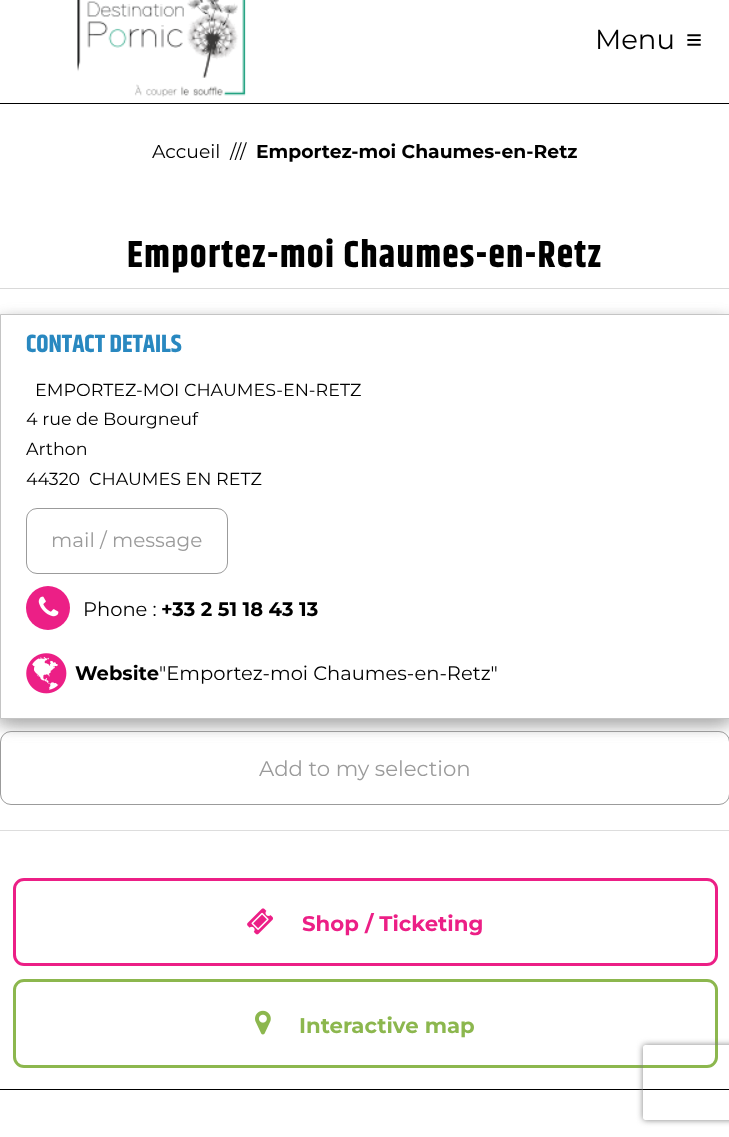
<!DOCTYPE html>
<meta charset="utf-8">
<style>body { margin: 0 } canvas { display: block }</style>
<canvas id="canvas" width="729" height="1137"></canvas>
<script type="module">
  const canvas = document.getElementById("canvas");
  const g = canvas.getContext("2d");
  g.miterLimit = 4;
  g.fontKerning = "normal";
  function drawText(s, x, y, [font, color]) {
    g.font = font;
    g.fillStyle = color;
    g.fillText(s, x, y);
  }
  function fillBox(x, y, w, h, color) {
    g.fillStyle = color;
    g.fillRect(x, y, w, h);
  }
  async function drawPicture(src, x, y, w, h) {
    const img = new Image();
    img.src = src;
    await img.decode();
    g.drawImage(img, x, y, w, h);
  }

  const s1 = ["27.5px Montserrat", "#000000"];
  const s2 = ["27.5px Liberation Sans", "#000000"];
  const s3 = ["18.75px Montserrat", "#000000"];
  const s4 = ["bold 18.75px Montserrat", "#000000"];
  const s5 = ["bold 37.5px Khand", "#000000"];
  const s6 = ["bold 25px Khand", "#2988C0"];
  const s7 = ["17.5px Montserrat", "#000000"];
  const s8 = ["20px Montserrat", "#9B9B9B"];
  const s9 = ["19.5px Montserrat", "#000000"];
  const s10 = ["bold 19.5px Montserrat", "#000000"];
  const s11 = ["21.25px Montserrat", "#9B9B9B"];
  const s12 = ["bold 21.25px Montserrat", "#EC1F86"];
  const s13 = ["bold 21.25px Montserrat", "#8CB74E"];

  fillBox(0, 0, 729, 1137, "#FFFFFF");
  fillBox(0, 103, 729, 1, "#000000");
  await drawPicture("pic1.png", 77, 0, 169, 97);
  drawText("Menu", 595, 49, s1);
  drawText("≡", 686, 49, s2);
  drawText("Accueil", 152, 158, s3);
  drawText("///", 230, 158, s3);
  drawText("Emportez-moi Chaumes-en-Retz", 256, 158, s4);
  fillBox(0, 288, 729, 1, "#D9D9D9");
  g.letterSpacing = "1.25px";
  drawText("Emportez-moi Chaumes-en-Retz", 127, 267, s5);
  g.beginPath();
  g.roundRect(0.5, 731.5, 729, 73, 10.5);
  g.strokeStyle = "#9B9B9B";
  g.stroke();
  g.fillStyle = "rgba(158, 158, 158, 0.6)";
  g.filter = "blur(7.5px)";
  g.beginPath();
  g.rect(-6, 320, 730, 405);
  g.fill();
  g.filter = "none";
  g.filter = "blur(7.5px)";
  g.beginPath();
  g.rect(6, 320, 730, 405);
  g.fill();
  g.filter = "none";
  g.fillStyle = "#FFFFFF";
  g.beginPath();
  g.rect(0.5, 314.5, 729, 404);
  g.fill();
  g.strokeStyle = "#C4C4C4";
  g.stroke();
  g.letterSpacing = "0px";
  drawText("CONTACT DETAILS", 26, 352, s6);
  drawText("EMPORTEZ-MOI CHAUMES-EN-RETZ", 35, 396, s7);
  drawText("4 rue de Bourgneuf", 26, 425, s7);
  drawText("Arthon", 26, 455, s7);
  drawText("44320", 26, 485, s7);
  drawText("CHAUMES EN RETZ", 89, 485, s7);
  g.beginPath();
  g.roundRect(26.5, 508.5, 201, 65, 10.5);
  g.strokeStyle = "#9B9B9B";
  g.stroke();
  drawText("mail / message", 51, 547, s8);
  g.fillStyle = "#EC1F86";
  g.beginPath();
  g.arc(48, 608, 22, 0, Math.PI * 2);
  g.fill();
  await drawPicture("pic2.png", 38, 596, 21, 21);
  drawText("Phone :", 83, 616, s9);
  drawText("+33 2 51 18 43 13", 161, 616, s10);
  await drawPicture("pic3.png", 26, 653, 41, 41);
  drawText("Website", 75, 680, s10);
  drawText("\"Emportez-moi Chaumes-en-Retz\"", 159, 680, s9);
  drawText("Add to my selection", 259, 776, s11);
  fillBox(0, 830, 729, 1, "#DDDDDD");
  fillBox(0, 1089, 729, 1, "#000000");
  g.beginPath();
  g.roundRect(14.5, 879.5, 702, 85, 9.5);
  g.strokeStyle = "#EC1F86";
  g.lineWidth = 3;
  g.stroke();
  await drawPicture("pic4.png", 247, 908, 26, 27);
  drawText("Shop / Ticketing", 302, 931, s12);
  g.beginPath();
  g.roundRect(14.5, 980.5, 702, 86, 9.5);
  g.strokeStyle = "#8CB74E";
  g.stroke();
  await drawPicture("pic5.png", 255, 1010, 16, 25);
  drawText("Interactive map", 299, 1033, s13);
  g.save();
  g.beginPath();
  g.moveTo(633, 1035);
  g.lineTo(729, 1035);
  g.lineTo(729, 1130);
  g.lineTo(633, 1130);
  g.closePath();
  g.moveTo(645.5, 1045);
  g.lineTo(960.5, 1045);
  g.bezierCurveTo(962, 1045, 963, 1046, 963, 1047.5);
  g.lineTo(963, 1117.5);
  g.bezierCurveTo(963, 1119, 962, 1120, 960.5, 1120);
  g.lineTo(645.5, 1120);
  g.bezierCurveTo(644, 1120, 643, 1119, 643, 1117.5);
  g.lineTo(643, 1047.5);
  g.bezierCurveTo(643, 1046, 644, 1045, 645.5, 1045);
  g.closePath();
  g.clip("evenodd");
  g.fillStyle = "#808080";
  g.filter = "blur(3px)";
  g.beginPath();
  g.roundRect(643, 1045, 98, 75, 2.5);
  g.fill();
  g.filter = "none";
  g.restore();
</script>
